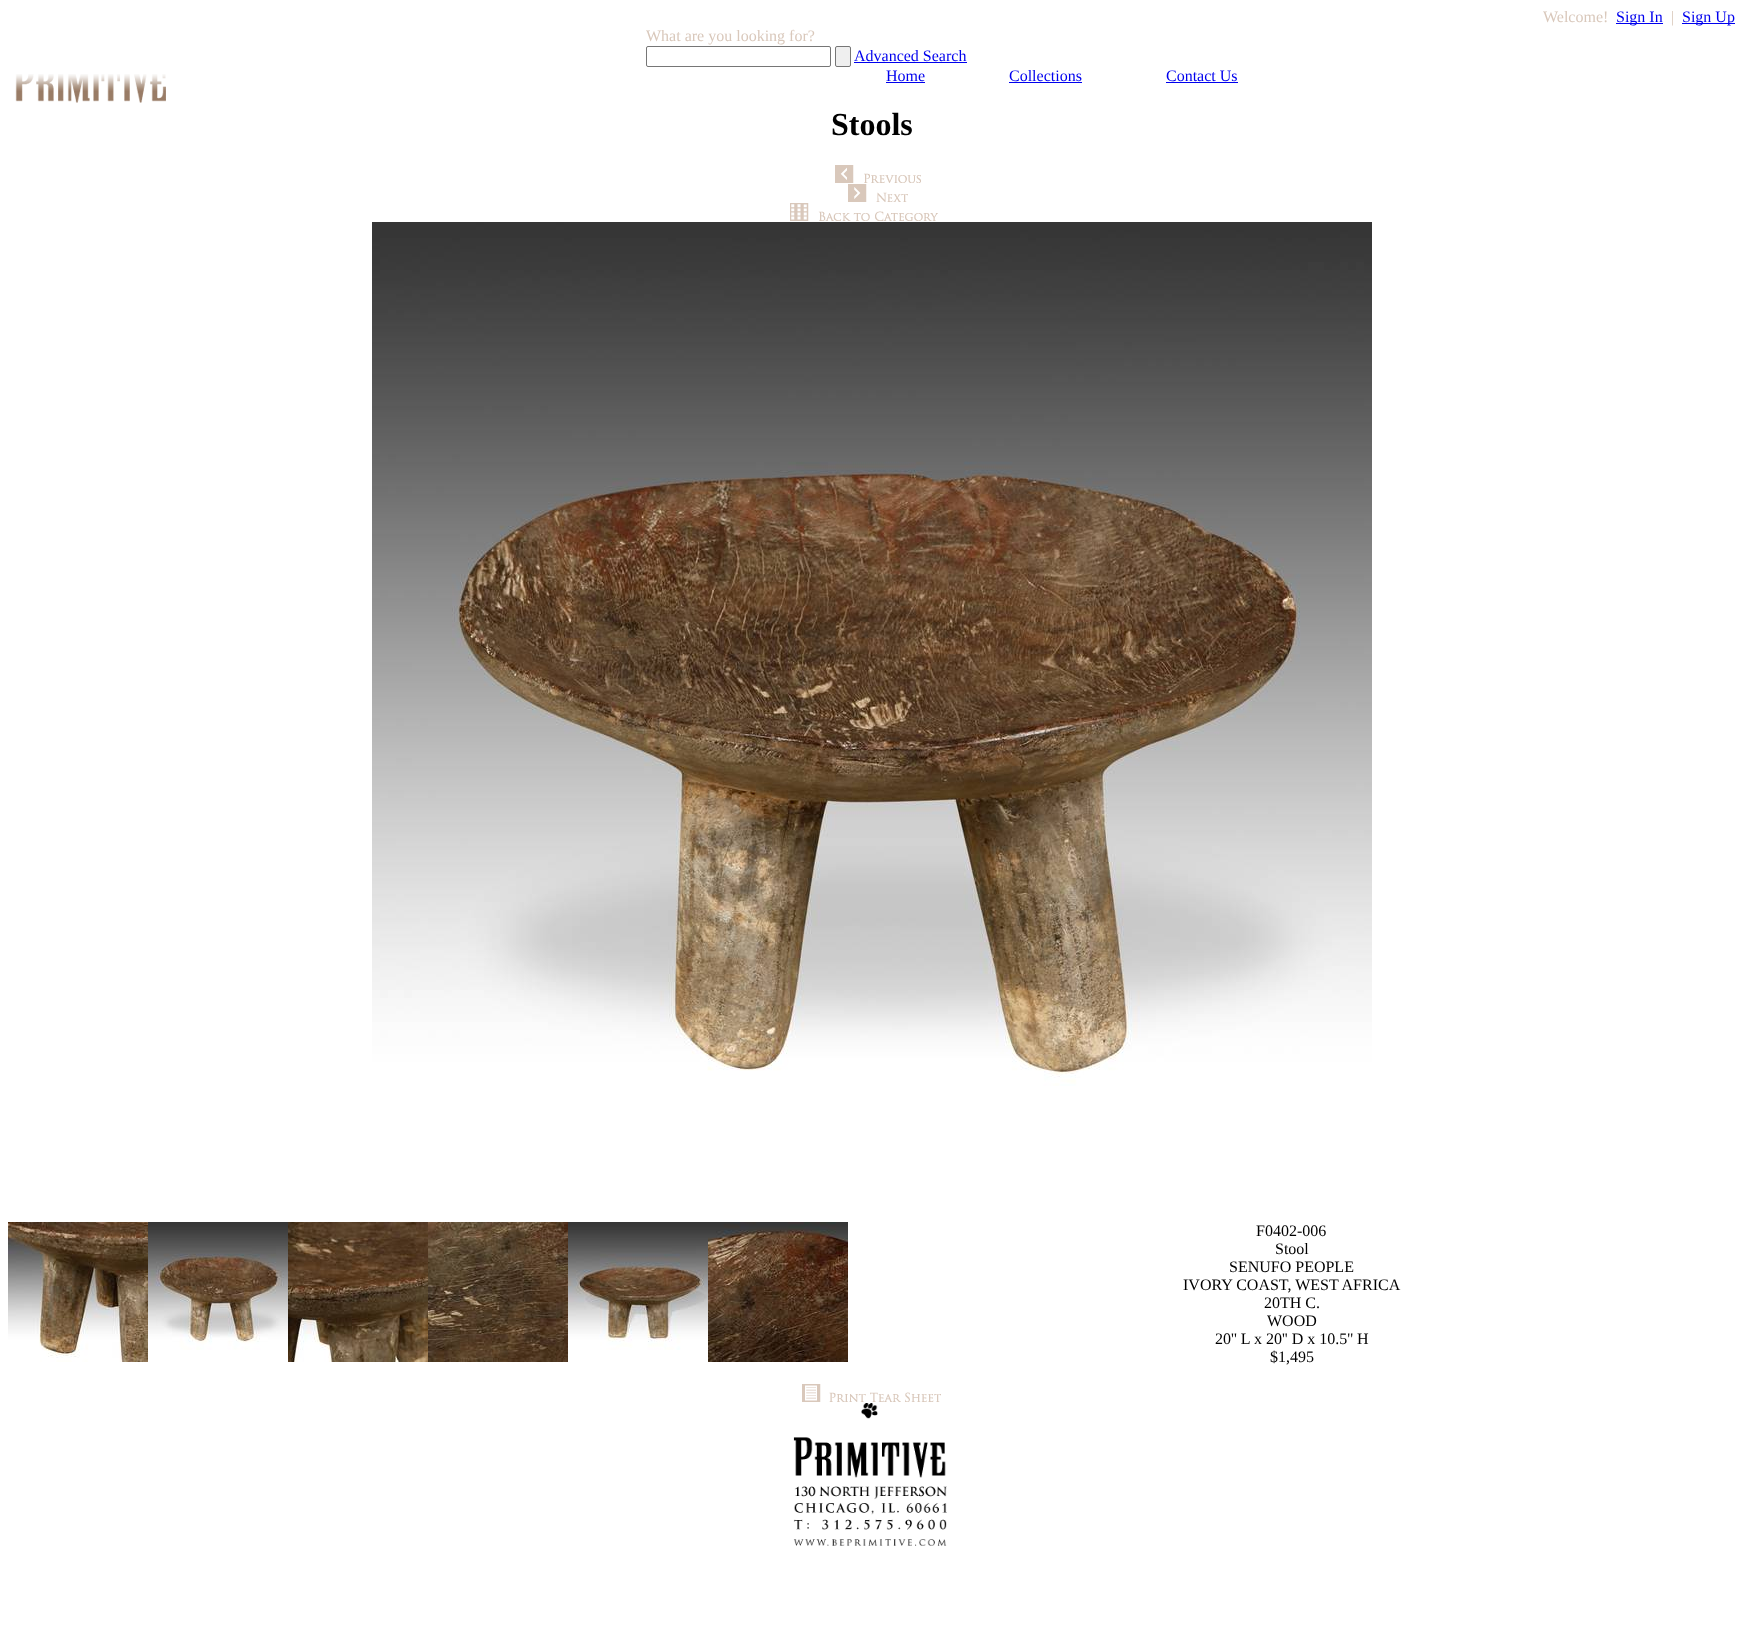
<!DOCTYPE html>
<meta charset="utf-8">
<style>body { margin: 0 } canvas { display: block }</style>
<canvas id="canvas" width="1743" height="1650"></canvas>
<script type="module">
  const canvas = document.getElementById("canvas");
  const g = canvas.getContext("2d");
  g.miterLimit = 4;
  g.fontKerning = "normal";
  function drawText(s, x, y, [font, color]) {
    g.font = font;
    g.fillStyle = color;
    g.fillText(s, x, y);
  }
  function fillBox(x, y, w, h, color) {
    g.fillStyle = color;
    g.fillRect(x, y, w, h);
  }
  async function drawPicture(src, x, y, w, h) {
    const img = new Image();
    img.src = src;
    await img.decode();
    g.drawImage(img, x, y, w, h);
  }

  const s1 = ["16px Liberation Serif", "#D9C8BB"];
  const s2 = ["16px Liberation Serif", "#0000EE"];
  const s3 = ["bold 32px Liberation Serif", "#000000"];
  const s4 = ["16px Liberation Serif", "#000000"];

  fillBox(0, 0, 1743, 1650, "#FFFFFF");
  drawText("Welcome!", 1543, 22, s1);
  fillBox(1616, 23, 47, 1, "#0000EE");
  drawText("Sign In", 1616, 22, s2);
  drawText("|", 1671, 22, s1);
  fillBox(1682, 23, 53, 1, "#0000EE");
  drawText("Sign Up", 1682, 22, s2);
  drawText("What are you looking for?", 646, 41, s1);
  g.beginPath();
  g.roundRect(646.5, 46.5, 184, 20, 1.5);
  g.strokeStyle = "#767676";
  g.stroke();
  g.fillStyle = "#EFEFEF";
  g.beginPath();
  g.roundRect(835.5, 46.5, 15, 20, 1.5);
  g.fill();
  g.stroke();
  drawText("Advanced Search", 854, 61, s2);
  fillBox(854, 62, 113, 1, "#0000EE");
  await drawPicture("pic1.png", 15, 74, 151, 29);
  drawText("Home", 886, 81, s2);
  fillBox(886, 82, 39, 1, "#0000EE");
  drawText("Collections", 1009, 81, s2);
  fillBox(1009, 82, 73, 1, "#0000EE");
  drawText("Contact Us", 1166, 81, s2);
  fillBox(1166, 82, 72, 1, "#0000EE");
  drawText("Stools", 831, 135, s3);
  await drawPicture("pic2.png", 835, 165, 86, 18);
  await drawPicture("pic3.png", 848, 184, 60, 18);
  await drawPicture("pic4.png", 790, 203, 148, 18);
  await drawPicture("pic5.png", 372, 222, 1000, 864);
  await drawPicture("pic6.png", 8, 1222, 140, 140);
  await drawPicture("pic7.png", 148, 1222, 140, 128);
  await drawPicture("pic8.png", 288, 1222, 140, 140);
  await drawPicture("pic9.png", 428, 1222, 140, 140);
  await drawPicture("pic10.png", 568, 1222, 140, 128);
  await drawPicture("pic11.png", 708, 1222, 140, 140);
  drawText("F0402-006", 1256, 1236, s4);
  drawText("Stool", 1275, 1254, s4);
  drawText("SENUFO PEOPLE", 1229, 1272, s4);
  drawText("IVORY COAST, WEST AFRICA", 1183, 1290, s4);
  drawText("20TH C.", 1264, 1308, s4);
  drawText("WOOD", 1267, 1326, s4);
  drawText("20'' L x 20'' D x 10.5'' H", 1215, 1344, s4);
  drawText("$1,495", 1270, 1362, s4);
  await drawPicture("pic12.png", 802, 1384, 139, 18);
  await drawPicture("pic13.png", 793, 1403, 154, 143);
</script>
